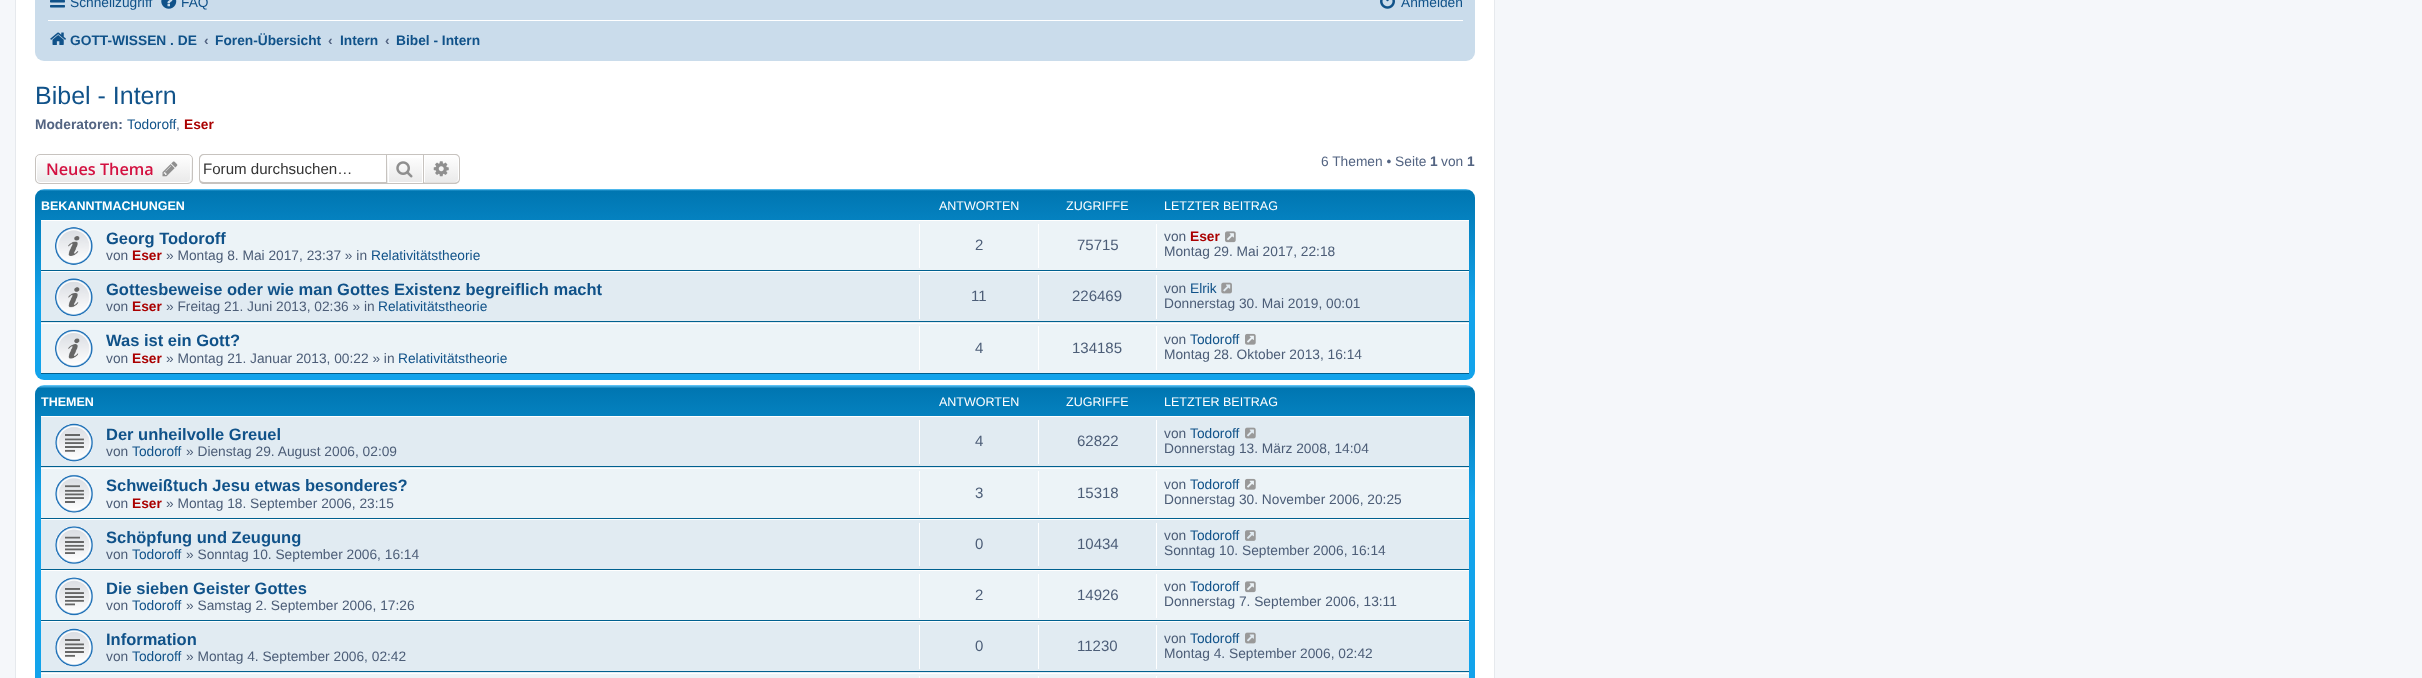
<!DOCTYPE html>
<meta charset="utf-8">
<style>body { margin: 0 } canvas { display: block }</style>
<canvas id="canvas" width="2422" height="678"></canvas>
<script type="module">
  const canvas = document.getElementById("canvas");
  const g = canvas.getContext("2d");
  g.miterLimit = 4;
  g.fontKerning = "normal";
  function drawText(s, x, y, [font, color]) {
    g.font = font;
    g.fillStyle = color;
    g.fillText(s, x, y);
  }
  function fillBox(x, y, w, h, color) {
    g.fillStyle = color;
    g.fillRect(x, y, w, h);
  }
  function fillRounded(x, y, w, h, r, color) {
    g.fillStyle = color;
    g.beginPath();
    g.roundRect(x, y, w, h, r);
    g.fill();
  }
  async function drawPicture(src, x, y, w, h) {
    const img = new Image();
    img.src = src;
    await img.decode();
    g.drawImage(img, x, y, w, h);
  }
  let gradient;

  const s1 = ["13.75px Liberation Sans", "#105289"];
  const s2 = ["bold 13.75px Liberation Sans", "#105289"];
  const s3 = ["bold 13.75px Liberation Sans", "#536482"];
  const s4 = ["25px Liberation Sans", "#105289"];
  const s5 = ["13.75px Liberation Sans", "#536482"];
  const s6 = ["bold 13.75px Liberation Sans", "#AA0000"];
  const s7 = ["600 16.25px Open Sans", "#D31141"];
  const s8 = ["15.1px Liberation Sans", "#333333"];
  const s9 = ["bold 12.5px Liberation Sans", "#FFFFFF"];
  const s10 = ["12.5px Liberation Sans", "#FFFFFF"];
  const s11 = ["bold 16.5px Liberation Sans", "#105289"];
  const s12 = ["13.75px Liberation Sans", "#4C5D77"];
  const s13 = ["15px Liberation Sans", "#4C5D77"];

  fillBox(0, 0, 2422, 678, "#F5F7FA");
  g.fillStyle = "#FFFFFF";
  g.beginPath();
  g.rect(15.5, -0.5, 1479, 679);
  g.fill();
  g.strokeStyle = "#E6E9ED";
  g.stroke();
  fillRounded(35, -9, 1440, 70, 9, "#CADCEB");
  await drawPicture("pic1.png", 50, 0, 15, 8);
  drawText("Schnellzugriff", 70, 7, s1);
  await drawPicture("pic2.png", 161, 0, 16, 9);
  drawText("FAQ", 181, 7, s1);
  await drawPicture("pic3.png", 1380, 0, 15, 9);
  drawText("Anmelden", 1401, 7, s1);
  fillBox(48, 20, 1415, 1, "#FFFFFF");
  await drawPicture("pic4.png", 50, 32, 16, 13);
  drawText("GOTT-WISSEN . DE", 70, 45, s2);
  drawText("‹", 204, 45, s3);
  drawText("Foren-Übersicht", 215, 45, s2);
  drawText("‹", 328, 45, s3);
  drawText("Intern", 340, 45, s2);
  drawText("‹", 385, 45, s3);
  drawText("Bibel - Intern", 396, 45, s2);
  drawText("Bibel - Intern", 35, 104, s4);
  drawText("Moderatoren:", 35, 129, s3);
  drawText("Todoroff", 127, 129, s1);
  drawText(",", 176, 129, s5);
  drawText("Eser", 184, 129, s6);
  g.save();
  g.beginPath();
  g.roundRect(35, 154, 158, 30, 5);
  g.clip();
  gradient = g.createLinearGradient(114, 155, 114, 183);
  gradient.addColorStop(0, "#FFFFFF");
  gradient.addColorStop(1, "#E9E9E9");
  g.fillStyle = gradient;
  g.fillRect(35, 155, 158, 28);
  g.restore();
  g.beginPath();
  g.roundRect(36.5, 155.5, 154, 27, 3.5);
  g.strokeStyle = "#FFFFFF";
  g.stroke();
  g.beginPath();
  g.roundRect(35.5, 154.5, 157, 29, 4.5);
  g.strokeStyle = "#C7C3BF";
  g.stroke();
  drawText("Neues Thema", 46, 175, s7);
  await drawPicture("pic5.png", 162, 161, 16, 16);
  g.fillStyle = "#C7C3BF";
  g.beginPath();
  g.moveTo(204, 154);
  g.lineTo(386, 154);
  g.lineTo(386, 184);
  g.lineTo(204, 184);
  g.bezierCurveTo(201, 184, 199, 182, 199, 179);
  g.lineTo(199, 159);
  g.bezierCurveTo(199, 156, 201, 154, 204, 154);
  g.closePath();
  g.moveTo(204, 155);
  g.lineTo(386, 155);
  g.lineTo(386, 182);
  g.lineTo(204, 182);
  g.bezierCurveTo(202, 182, 200, 181, 200, 179);
  g.lineTo(200, 159);
  g.bezierCurveTo(200, 157, 202, 155, 204, 155);
  g.closePath();
  g.fill("evenodd");
  drawText("Forum durchsuchen…", 203, 174, s8);
  gradient = g.createLinearGradient(405, 155, 405, 183);
  gradient.addColorStop(0, "#FFFFFF");
  gradient.addColorStop(1, "#E9E9E9");
  g.fillStyle = gradient;
  g.fillRect(387, 158, 35, 25);
  g.strokeStyle = "#FFFFFF";
  g.strokeRect(388.5, 155.5, 34, 27);
  g.strokeStyle = "#C7C3BF";
  g.strokeRect(386.5, 154.5, 37, 29);
  await drawPicture("pic6.png", 396, 161, 17, 17);
  gradient = g.createLinearGradient(441, 155, 441, 183);
  gradient.addColorStop(0, "#FFFFFF");
  gradient.addColorStop(1, "#E9E9E9");
  g.fillStyle = gradient;
  g.beginPath();
  g.roundRect(424.5, 155.5, 34, 27, [0, 3.5, 3.5, 0]);
  g.fill();
  g.strokeStyle = "#FFFFFF";
  g.stroke();
  g.fillStyle = "#C7C3BF";
  g.beginPath();
  g.moveTo(424, 154);
  g.lineTo(455, 154);
  g.bezierCurveTo(458, 154, 460, 156, 460, 159);
  g.lineTo(460, 179);
  g.bezierCurveTo(460, 181.5, 458, 184, 455, 184);
  g.lineTo(424, 184);
  g.closePath();
  g.moveTo(424, 155);
  g.lineTo(455, 155);
  g.bezierCurveTo(457, 155, 459, 156.5, 459, 159);
  g.lineTo(459, 179);
  g.bezierCurveTo(459, 181, 457, 182.5, 455, 182.5);
  g.lineTo(424, 182.5);
  g.closePath();
  g.fill("evenodd");
  await drawPicture("pic7.png", 433, 161, 16, 16);
  drawText("6 Themen • Seite", 1321, 166, s5);
  drawText("1", 1430, 166, s3);
  drawText("von", 1441, 166, s5);
  drawText("1", 1467, 166, s3);
  gradient = g.createLinearGradient(755, 189, 755, 380);
  gradient.addColorStop(0, "#6ACEFF");
  gradient.addColorStop(0.01, "#0076B1");
  gradient.addColorStop(0.6, "#12A3EB");
  gradient.addColorStop(1, "#12A3EB");
  g.fillStyle = gradient;
  g.beginPath();
  g.roundRect(35, 189, 1440, 191, 9);
  g.fill();
  drawText("BEKANNTMACHUNGEN", 41, 210, s9);
  drawText("ANTWORTEN", 939, 210, s10);
  drawText("ZUGRIFFE", 1066, 210, s10);
  drawText("LETZTER BEITRAG", 1164, 210, s10);
  fillBox(41, 221, 1428, 49, "#ECF3F7");
  fillBox(41, 220, 1428, 1, "#FFFFFF");
  fillBox(41, 270, 1428, 1, "#00608F");
  await drawPicture("pic8.png", 55, 227, 38, 38);
  drawText("Georg Todoroff", 106, 244, s11);
  drawText("von", 106, 260, s12);
  drawText("Eser", 132, 260, s6);
  drawText("» Montag 8. Mai 2017, 23:37 » in", 166, 260, s12);
  drawText("Relativitätstheorie", 371, 260, s1);
  fillBox(919, 224, 1, 44, "#FFFFFF");
  drawText("2", 975, 250, s13);
  fillBox(1038, 224, 1, 44, "#FFFFFF");
  drawText("75715", 1077, 250, s13);
  fillBox(1156, 224, 1, 44, "#FFFFFF");
  drawText("von", 1164, 241, s12);
  drawText("Eser", 1190, 241, s6);
  await drawPicture("pic9.png", 1225, 231, 11, 12);
  drawText("Montag 29. Mai 2017, 22:18", 1164, 256, s12);
  fillBox(41, 272, 1428, 51, "#E1EBF2");
  fillBox(41, 271, 1428, 1, "#FFFFFF");
  fillBox(41, 321, 1428, 1, "#00608F");
  await drawPicture("pic10.png", 55, 278, 38, 38);
  drawText("Gottesbeweise oder wie man Gottes Existenz begreiflich macht", 106, 295, s11);
  drawText("von", 106, 311, s12);
  drawText("Eser", 132, 311, s6);
  drawText("» Freitag 21. Juni 2013, 02:36 » in", 166, 311, s12);
  drawText("Relativitätstheorie", 378, 311, s1);
  fillBox(919, 275, 1, 44, "#FFFFFF");
  drawText("11", 971, 301, s13);
  fillBox(1038, 275, 1, 44, "#FFFFFF");
  drawText("226469", 1072, 301, s13);
  fillBox(1156, 275, 1, 44, "#FFFFFF");
  drawText("von", 1164, 293, s12);
  drawText("Elrik", 1190, 293, s1);
  await drawPicture("pic11.png", 1221, 282, 11, 12);
  drawText("Donnerstag 30. Mai 2019, 00:01", 1164, 308, s12);
  fillBox(41, 324, 1428, 49, "#ECF3F7");
  fillBox(41, 323, 1428, 1, "#FFFFFF");
  fillBox(41, 373, 1428, 1, "#00608F");
  await drawPicture("pic12.png", 55, 329, 38, 39);
  drawText("Was ist ein Gott?", 106, 346, s11);
  drawText("von", 106, 363, s12);
  drawText("Eser", 132, 363, s6);
  drawText("» Montag 21. Januar 2013, 00:22 » in", 166, 363, s12);
  drawText("Relativitätstheorie", 398, 363, s1);
  fillBox(919, 326, 1, 44, "#FFFFFF");
  drawText("4", 975, 353, s13);
  fillBox(1038, 326, 1, 44, "#FFFFFF");
  drawText("134185", 1072, 353, s13);
  fillBox(1156, 326, 1, 44, "#FFFFFF");
  drawText("von", 1164, 344, s12);
  drawText("Todoroff", 1190, 344, s1);
  await drawPicture("pic13.png", 1245, 333, 11, 12);
  drawText("Montag 28. Oktober 2013, 16:14", 1164, 359, s12);
  gradient = g.createLinearGradient(755, 385, 755, 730);
  gradient.addColorStop(0, "#6ACEFF");
  gradient.addColorStop(0.01, "#0076B1");
  gradient.addColorStop(0.33, "#12A3EB");
  gradient.addColorStop(1, "#12A3EB");
  g.fillStyle = gradient;
  g.beginPath();
  g.roundRect(35, 385, 1440, 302, 9);
  g.fill();
  drawText("THEMEN", 41, 406, s9);
  drawText("ANTWORTEN", 939, 406, s10);
  drawText("ZUGRIFFE", 1066, 406, s10);
  drawText("LETZTER BEITRAG", 1164, 406, s10);
  fillBox(41, 417, 1428, 51, "#E1EBF2");
  fillBox(41, 416, 1428, 1, "#FFFFFF");
  fillBox(41, 466, 1428, 1, "#00608F");
  await drawPicture("pic14.png", 55, 423, 38, 39);
  drawText("Der unheilvolle Greuel", 106, 440, s11);
  drawText("von", 106, 456, s12);
  drawText("Todoroff", 132, 456, s1);
  drawText("» Dienstag 29. August 2006, 02:09", 186, 456, s12);
  fillBox(919, 420, 1, 44, "#FFFFFF");
  drawText("4", 975, 446, s13);
  fillBox(1038, 420, 1, 44, "#FFFFFF");
  drawText("62822", 1077, 446, s13);
  fillBox(1156, 420, 1, 44, "#FFFFFF");
  drawText("von", 1164, 438, s12);
  drawText("Todoroff", 1190, 438, s1);
  await drawPicture("pic15.png", 1245, 427, 11, 12);
  drawText("Donnerstag 13. März 2008, 14:04", 1164, 453, s12);
  fillBox(41, 469, 1428, 49, "#ECF3F7");
  fillBox(41, 468, 1428, 1, "#FFFFFF");
  fillBox(41, 518, 1428, 1, "#00608F");
  await drawPicture("pic16.png", 55, 474, 38, 39);
  drawText("Schweißtuch Jesu etwas besonderes?", 106, 491, s11);
  drawText("von", 106, 508, s12);
  drawText("Eser", 132, 508, s6);
  drawText("» Montag 18. September 2006, 23:15", 166, 508, s12);
  fillBox(919, 471, 1, 44, "#FFFFFF");
  drawText("3", 975, 498, s13);
  fillBox(1038, 471, 1, 44, "#FFFFFF");
  drawText("15318", 1077, 498, s13);
  fillBox(1156, 471, 1, 44, "#FFFFFF");
  drawText("von", 1164, 489, s12);
  drawText("Todoroff", 1190, 489, s1);
  await drawPicture("pic13.png", 1245, 478, 11, 12);
  drawText("Donnerstag 30. November 2006, 20:25", 1164, 504, s12);
  fillBox(41, 520, 1428, 49, "#E1EBF2");
  fillBox(41, 519, 1428, 1, "#FFFFFF");
  fillBox(41, 569, 1428, 1, "#00608F");
  await drawPicture("pic17.png", 55, 526, 38, 38);
  drawText("Schöpfung und Zeugung", 106, 543, s11);
  drawText("von", 106, 559, s12);
  drawText("Todoroff", 132, 559, s1);
  drawText("» Sonntag 10. September 2006, 16:14", 186, 559, s12);
  fillBox(919, 523, 1, 43, "#FFFFFF");
  drawText("0", 975, 549, s13);
  fillBox(1038, 523, 1, 43, "#FFFFFF");
  drawText("10434", 1077, 549, s13);
  fillBox(1156, 523, 1, 43, "#FFFFFF");
  drawText("von", 1164, 540, s12);
  drawText("Todoroff", 1190, 540, s1);
  await drawPicture("pic18.png", 1245, 530, 11, 11);
  drawText("Sonntag 10. September 2006, 16:14", 1164, 555, s12);
  fillBox(41, 571, 1428, 49, "#ECF3F7");
  fillBox(41, 570, 1428, 1, "#FFFFFF");
  fillBox(41, 620, 1428, 1, "#00608F");
  await drawPicture("pic19.png", 55, 577, 38, 39);
  drawText("Die sieben Geister Gottes", 106, 594, s11);
  drawText("von", 106, 610, s12);
  drawText("Todoroff", 132, 610, s1);
  drawText("» Samstag 2. September 2006, 17:26", 186, 610, s12);
  fillBox(919, 574, 1, 44, "#FFFFFF");
  drawText("2", 975, 600, s13);
  fillBox(1038, 574, 1, 44, "#FFFFFF");
  drawText("14926", 1077, 600, s13);
  fillBox(1156, 574, 1, 44, "#FFFFFF");
  drawText("von", 1164, 591, s12);
  drawText("Todoroff", 1190, 591, s1);
  await drawPicture("pic9.png", 1245, 581, 11, 12);
  drawText("Donnerstag 7. September 2006, 13:11", 1164, 606, s12);
  fillBox(41, 622, 1428, 51, "#E1EBF2");
  fillBox(41, 621, 1428, 1, "#FFFFFF");
  fillBox(41, 671, 1428, 1, "#00608F");
  await drawPicture("pic20.png", 55, 628, 38, 39);
  drawText("Information", 106, 645, s11);
  drawText("von", 106, 661, s12);
  drawText("Todoroff", 132, 661, s1);
  drawText("» Montag 4. September 2006, 02:42", 186, 661, s12);
  fillBox(919, 625, 1, 44, "#FFFFFF");
  drawText("0", 975, 651, s13);
  fillBox(1038, 625, 1, 44, "#FFFFFF");
  drawText("11230", 1077, 651, s13);
  fillBox(1156, 625, 1, 44, "#FFFFFF");
  drawText("von", 1164, 643, s12);
  drawText("Todoroff", 1190, 643, s1);
  await drawPicture("pic15.png", 1245, 632, 11, 12);
  drawText("Montag 4. September 2006, 02:42", 1164, 658, s12);
  fillBox(41, 674, 1428, 4, "#ECF3F7");
  fillBox(41, 673, 1428, 1, "#FFFFFF");
  fillBox(919, 676, 1, 2, "#FFFFFF");
  fillBox(1038, 676, 1, 2, "#FFFFFF");
  fillBox(1156, 676, 1, 2, "#FFFFFF");
</script>
